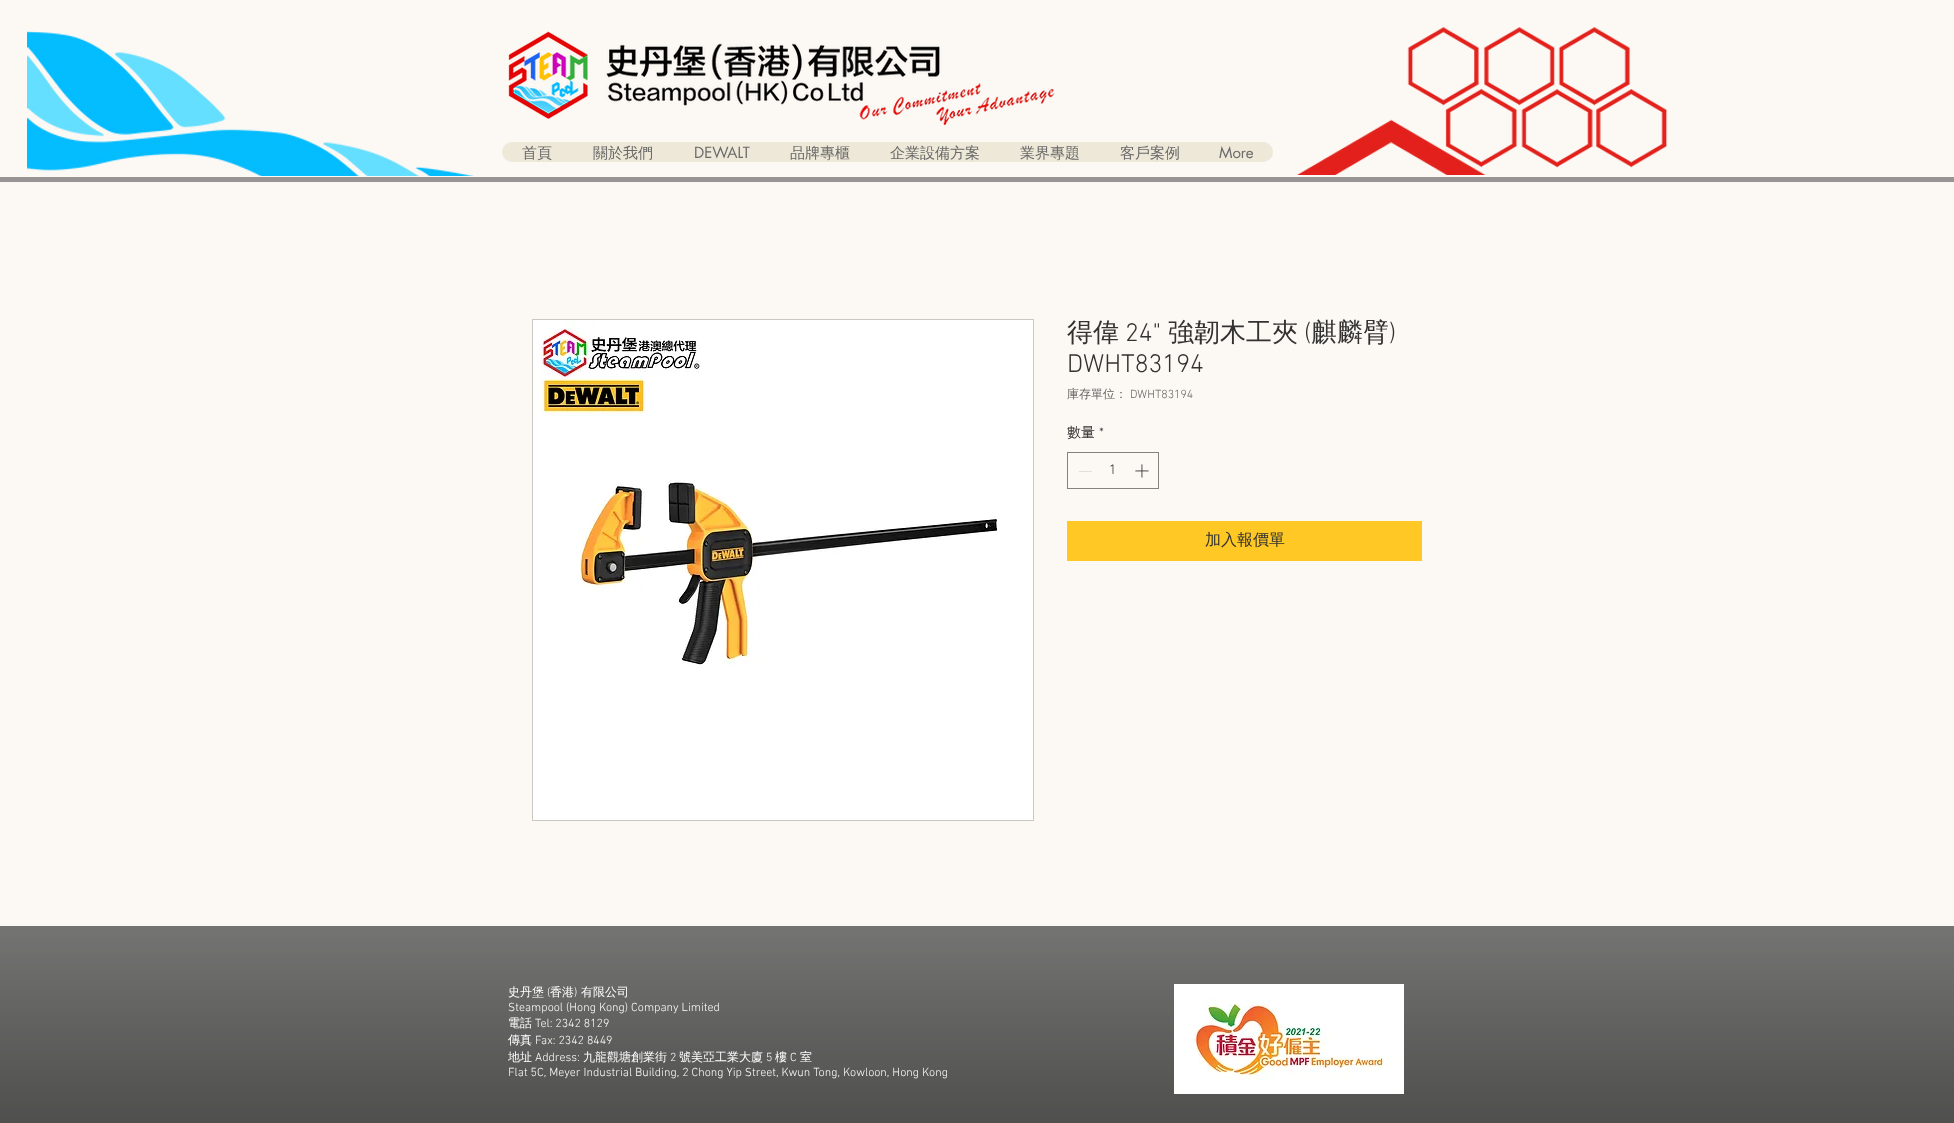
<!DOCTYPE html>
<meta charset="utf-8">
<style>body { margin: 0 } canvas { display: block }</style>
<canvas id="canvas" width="1954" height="1123"></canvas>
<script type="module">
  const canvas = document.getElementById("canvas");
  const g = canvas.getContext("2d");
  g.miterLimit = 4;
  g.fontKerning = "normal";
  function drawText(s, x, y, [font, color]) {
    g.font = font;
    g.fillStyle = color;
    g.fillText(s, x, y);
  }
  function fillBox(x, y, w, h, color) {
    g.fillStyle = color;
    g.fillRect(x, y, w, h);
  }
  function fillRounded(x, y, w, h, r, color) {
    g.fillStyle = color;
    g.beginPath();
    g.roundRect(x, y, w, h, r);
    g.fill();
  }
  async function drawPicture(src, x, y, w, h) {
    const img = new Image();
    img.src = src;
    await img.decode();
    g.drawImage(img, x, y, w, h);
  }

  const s1 = ["500 15px WenQuanYi Zen Hei", "#696969"];
  const s2 = ["15px futura", "#696969"];
  const s3 = ["500 26px WenQuanYi Zen Hei", "#323231"];
  const s4 = ["300 26px 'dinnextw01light'", "#323231"];
  const s5 = ["500 12px WenQuanYi Zen Hei", "#656462"];
  const s6 = ["300 12px 'dinnextw01light'", "#656462"];
  const s7 = ["500 14px WenQuanYi Zen Hei", "#323231"];
  const s8 = ["300 14px 'dinnextw01light'", "#323231"];
  const s9 = ["500 16px WenQuanYi Zen Hei", "#323231"];
  const s10 = ["500 12px WenQuanYi Zen Hei", "#FFFFFF"];
  const s11 = ["300 12px 'dinnextw01light'", "#FFFFFF"];

  fillBox(0, 0, 1954, 1123, "#FCF9F5");
  await drawPicture("pic1.png", 27, 31, 447, 145);
  await drawPicture("pic2.png", 508, 31, 547, 94);
  await drawPicture("pic3.png", 1296, 27, 372, 148);
  fillRounded(502, 142, 771, 20, 10, "#EEE8D8");
  drawText("首頁", 522, 158, s1);
  drawText("關於我們", 593, 158, s1);
  drawText("DEWALT", 694, 158, s2);
  drawText("品牌專櫃", 790, 158, s1);
  drawText("企業設備方案", 890, 158, s1);
  drawText("業界專題", 1020, 158, s1);
  drawText("客戶案例", 1120, 158, s1);
  drawText("More", 1219, 158, s2);
  fillBox(0, 177, 1954, 5, "#979593");
  g.strokeStyle = "#CAC7C4";
  g.strokeRect(532.5, 319.5, 501, 501);
  await drawPicture("pic4.png", 533, 320, 500, 500);
  drawText("得偉", 1067, 341, s3);
  drawText("24\"", 1125, 341, s4);
  drawText("強韌木工夾", 1168, 341, s3);
  drawText("(", 1304, 341, s4);
  drawText("麒麟臂", 1311, 341, s3);
  drawText(")", 1389, 341, s4);
  drawText("DWHT83194", 1067, 372, s4);
  drawText("庫存單位：", 1067, 398, s5);
  drawText("DWHT83194", 1130, 398, s6);
  drawText("數量", 1067, 437, s7);
  drawText("*", 1099, 437, s8);
  g.strokeStyle = "#83827F";
  g.strokeRect(1067.5, 452.5, 91, 36);
  fillBox(1079, 471, 13, 1, "#E2E0DE");
  drawText("1", 1109, 474, s8);
  await drawPicture("pic5.png", 1135, 464, 14, 14);
  fillBox(1067, 521, 355, 40, "#FFC824");
  drawText("加入報價單", 1205, 545, s9);
  fillBox(0, 926, 1954, 197, "#444443");
  await drawPicture("pic6.png", 0, 926, 1954, 197);
  drawText("史丹堡", 508, 996, s10);
  drawText("(", 547, 996, s11);
  drawText("香港", 550, 996, s10);
  drawText(")", 574, 996, s11);
  drawText("有限公司", 581, 996, s10);
  drawText("Steampool (Hong Kong) Company Limited", 508, 1011, s11);
  drawText("電話", 508, 1027, s10);
  drawText("Tel: 2342 8129", 535, 1027, s11);
  drawText("傳真", 508, 1044, s10);
  drawText("Fax: 2342 8449", 535, 1044, s11);
  drawText("地址", 508, 1061, s10);
  drawText("Address:", 535, 1061, s11);
  drawText("九龍觀塘創業街", 583, 1061, s10);
  drawText("2", 670, 1061, s11);
  drawText("號美亞工業大廈", 679, 1061, s10);
  drawText("5", 766, 1061, s11);
  drawText("樓", 775, 1061, s10);
  drawText("C", 790, 1061, s11);
  drawText("室", 800, 1061, s10);
  drawText("Flat 5C, Meyer Industrial Building, 2 Chong Yip Street, Kwun Tong, Kowloon, Hong Kong", 508, 1076, s11);
  await drawPicture("pic7.png", 1174, 984, 230, 110);
</script>
